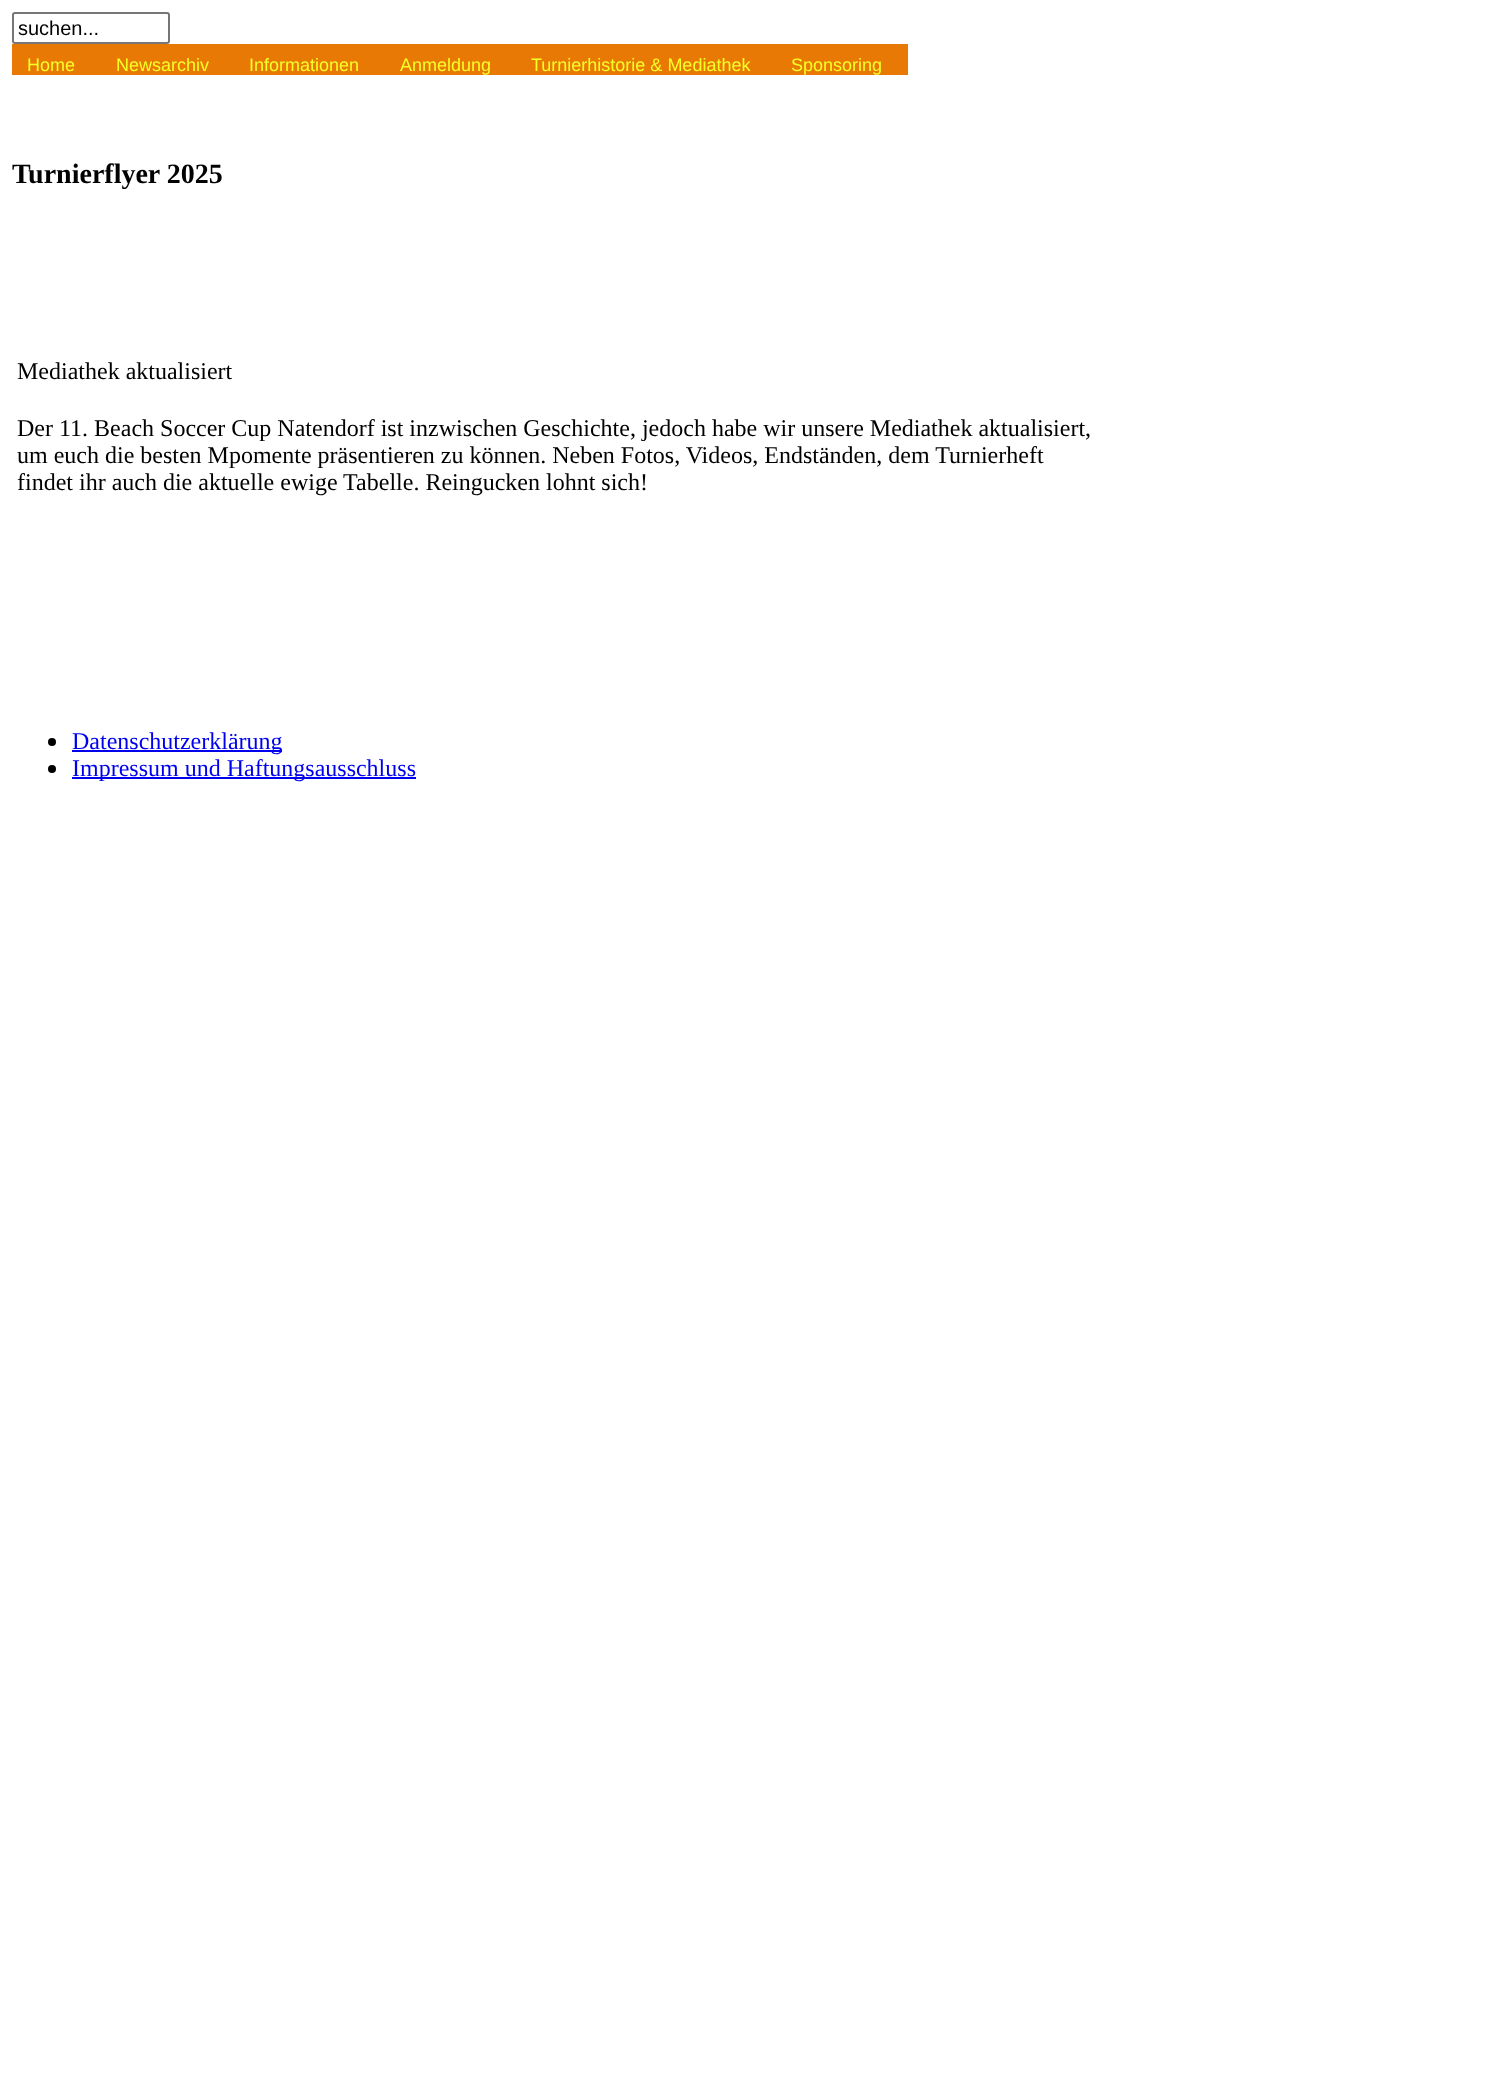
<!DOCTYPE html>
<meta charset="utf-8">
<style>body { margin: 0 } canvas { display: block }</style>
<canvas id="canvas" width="1510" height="2098"></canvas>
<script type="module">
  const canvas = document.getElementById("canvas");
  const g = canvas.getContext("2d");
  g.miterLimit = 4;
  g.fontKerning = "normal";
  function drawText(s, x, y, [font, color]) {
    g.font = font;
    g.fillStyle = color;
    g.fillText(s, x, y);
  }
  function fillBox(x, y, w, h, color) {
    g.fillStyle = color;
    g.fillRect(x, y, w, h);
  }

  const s1 = ["20px Liberation Sans", "#000000"];
  const s2 = ["18px Liberation Sans", "#F5FF25"];
  const s3 = ["bold 28px Liberation Serif", "#000000"];
  const s4 = ["24px Liberation Serif", "#000000"];
  const s5 = ["24px Liberation Serif", "#0000EE"];

  fillBox(0, 0, 1510, 2098, "#FFFFFF");
  g.beginPath();
  g.roundRect(13, 13, 156, 30, 2);
  g.strokeStyle = "#767676";
  g.lineWidth = 2;
  g.stroke();
  drawText("suchen...", 18, 35, s1);
  fillBox(12, 44, 896, 31, "#E77904");
  drawText("Home", 27, 71, s2);
  drawText("Newsarchiv", 116, 71, s2);
  drawText("Informationen", 249, 71, s2);
  drawText("Anmeldung", 400, 71, s2);
  drawText("Turnierhistorie & Mediathek", 531, 71, s2);
  drawText("Sponsoring", 791, 71, s2);
  drawText("Turnierflyer 2025", 12, 183, s3);
  drawText("Mediathek aktualisiert", 17, 379, s4);
  drawText("Der 11. Beach Soccer Cup Natendorf ist inzwischen Geschichte, jedoch habe wir unsere Mediathek aktualisiert,", 17, 436, s4);
  drawText("um euch die besten Mpomente präsentieren zu können. Neben Fotos, Videos, Endständen, dem Turnierheft", 17, 463, s4);
  drawText("findet ihr auch die aktuelle ewige Tabelle. Reingucken lohnt sich!", 17, 490, s4);
  g.beginPath();
  g.arc(52, 742, 4, 0, Math.PI * 2);
  g.fill();
  fillBox(72, 750, 210, 2, "#0000EE");
  drawText("Datenschutzerklärung", 72, 749, s5);
  g.fillStyle = "#000000";
  g.beginPath();
  g.arc(52, 769, 4, 0, Math.PI * 2);
  g.fill();
  fillBox(72, 777, 344, 2, "#0000EE");
  drawText("Impressum und Haftungsausschluss", 72, 776, s5);
</script>
